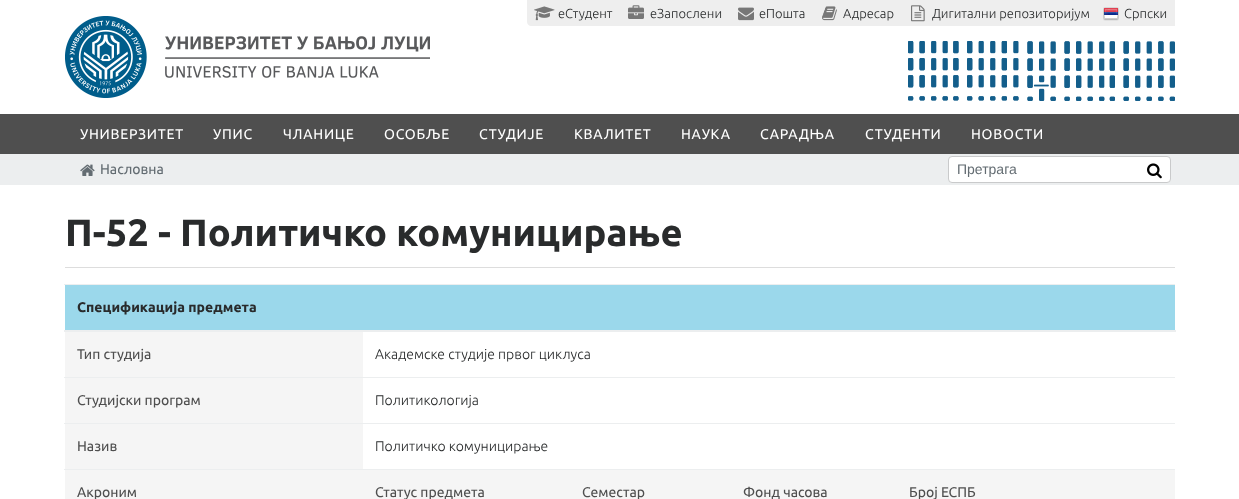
<!DOCTYPE html>
<meta charset="utf-8">
<style>body { margin: 0 } canvas { display: block }</style>
<canvas id="canvas" width="1239" height="499"></canvas>
<script type="module">
  const canvas = document.getElementById("canvas");
  const g = canvas.getContext("2d");
  g.miterLimit = 4;
  g.fontKerning = "normal";
  function drawText(s, x, y, [font, color]) {
    g.font = font;
    g.fillStyle = color;
    g.fillText(s, x, y);
  }
  function fillBox(x, y, w, h, color) {
    g.fillStyle = color;
    g.fillRect(x, y, w, h);
  }
  async function drawPicture(src, x, y, w, h) {
    const img = new Image();
    img.src = src;
    await img.decode();
    g.drawImage(img, x, y, w, h);
  }

  const s1 = ["300 13px Ubuntu", "#292B2C"];
  const s2 = ["14px Ubuntu", "#FFFFFF"];
  const s3 = ["14px Ubuntu", "#636C72"];
  const s4 = ["14px Liberation Sans", "#636C72"];
  const s5 = ["bold 38px Ubuntu", "#292B2C"];
  const s6 = ["bold 14px Ubuntu", "#292B2C"];
  const s7 = ["14px Ubuntu", "#4F4F4F"];
  const s8 = ["300 14px Ubuntu", "#292B2C"];

  fillBox(0, 0, 1239, 499, "#FFFFFF");
  await drawPicture("pic1.png", 908, 41, 267, 60);
  g.fillStyle = "#EEEEEE";
  g.beginPath();
  g.moveTo(527, -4);
  g.lineTo(619, -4);
  g.lineTo(619, 26);
  g.lineTo(531, 26);
  g.bezierCurveTo(529, 26, 527, 24, 527, 22);
  g.closePath();
  g.fill();
  await drawPicture("pic2.png", 534, 6, 21, 15);
  drawText("еСтудент", 558, 18, s1);
  fillBox(619, 0, 556, 26, "#EEEEEE");
  await drawPicture("pic3.png", 628, 5, 16, 14);
  drawText("еЗапослени", 650, 18, s1);
  await drawPicture("pic4.png", 738, 7, 16, 14);
  drawText("еПошта", 759, 18, s1);
  await drawPicture("pic5.png", 822, 6, 15, 15);
  drawText("Адресар", 843, 18, s1);
  await drawPicture("pic6.png", 911, 5, 14, 17);
  drawText("Дигитални репозиторијум", 932, 18, s1);
  await drawPicture("pic7.png", 1103, 7, 16, 14);
  drawText("Српски", 1124, 18, s1);
  await drawPicture("pic8.png", 65, 16, 365, 82);
  fillBox(0, 114, 1239, 40, "#4F4F4F");
  g.letterSpacing = "0.75px";
  drawText("УНИВЕРЗИТЕТ", 80, 139, s2);
  drawText("УПИС", 213, 139, s2);
  drawText("ЧЛАНИЦЕ", 283, 139, s2);
  drawText("ОСОБЉЕ", 384, 139, s2);
  drawText("СТУДИЈЕ", 479, 139, s2);
  drawText("КВАЛИТЕТ", 574, 139, s2);
  drawText("НАУКА", 681, 139, s2);
  drawText("САРАДЊА", 760, 139, s2);
  drawText("СТУДЕНТИ", 865, 139, s2);
  drawText("НОВОСТИ", 971, 139, s2);
  fillBox(0, 154, 1239, 31, "#ECEEEF");
  await drawPicture("pic9.png", 80, 164, 15, 12);
  g.letterSpacing = "0px";
  drawText("Насловна", 100, 174, s3);
  g.fillStyle = "#FFFFFF";
  g.beginPath();
  g.roundRect(948.5, 156.5, 222, 26, 3.5);
  g.fill();
  g.strokeStyle = "#C9CACB";
  g.stroke();
  drawText("Претрага", 957, 174, s4);
  await drawPicture("pic10.png", 1147, 163, 15, 16);
  fillBox(65, 267, 1110, 1, "#DDDDDD");
  drawText("П-52 - Политичко комуницирање", 65, 246, s5);
  fillBox(65, 285, 1110, 45, "#9BD8EB");
  fillBox(64, 284, 1111, 1, "#ECEEEF");
  fillBox(64, 330, 1112, 2, "#ECEEEF");
  drawText("Спецификација предмета", 77, 312, s6);
  fillBox(65, 332, 298, 45, "#F5F5F5");
  drawText("Тип студија", 77, 359, s7);
  drawText("Академске студије првог циклуса", 375, 359, s8);
  fillBox(65, 378, 298, 45, "#F5F5F5");
  drawText("Студијски програм", 77, 405, s7);
  fillBox(64, 377, 1111, 1, "#ECEEEF");
  drawText("Политикологија", 375, 405, s8);
  fillBox(65, 424, 298, 45, "#F5F5F5");
  drawText("Назив", 77, 451, s7);
  fillBox(64, 423, 1111, 1, "#ECEEEF");
  drawText("Политичко комуницирање", 375, 451, s8);
  fillBox(65, 470, 1110, 29, "#F5F5F5");
  drawText("Акроним", 77, 497, s7);
  drawText("Статус предмета", 375, 497, s7);
  drawText("Семестар", 582, 497, s7);
  drawText("Фонд часова", 743, 497, s7);
  fillBox(64, 469, 1111, 1, "#ECEEEF");
  drawText("Број ЕСПБ", 909, 497, s7);
</script>
